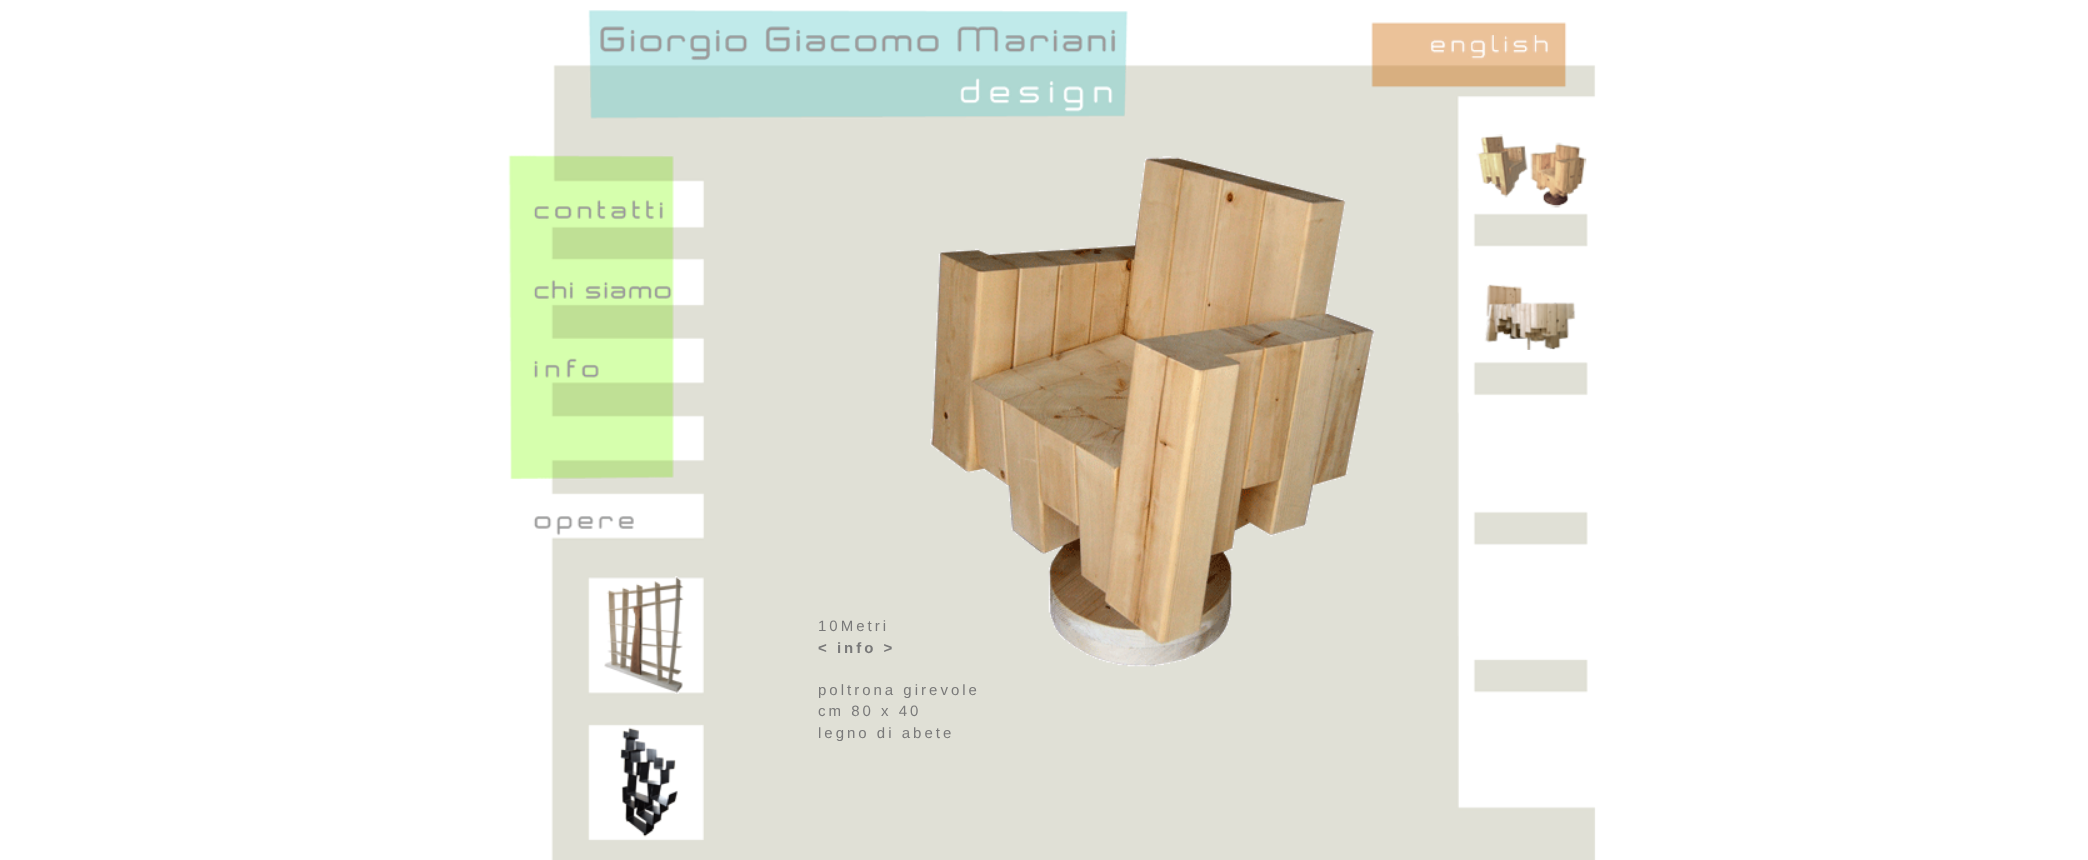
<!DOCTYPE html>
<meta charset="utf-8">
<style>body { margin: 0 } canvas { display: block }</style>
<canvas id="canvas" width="2088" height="860"></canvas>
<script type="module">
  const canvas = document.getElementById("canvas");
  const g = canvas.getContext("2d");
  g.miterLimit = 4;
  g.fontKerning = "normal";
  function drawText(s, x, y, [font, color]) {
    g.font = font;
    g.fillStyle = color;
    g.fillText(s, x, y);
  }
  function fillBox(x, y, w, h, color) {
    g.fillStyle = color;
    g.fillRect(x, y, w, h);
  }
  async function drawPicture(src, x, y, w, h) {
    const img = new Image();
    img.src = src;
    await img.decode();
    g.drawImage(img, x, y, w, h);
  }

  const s1 = ["15px Liberation Sans", "#797979"];
  const s2 = ["bold 15px Liberation Sans", "#797979"];

  fillBox(0, 0, 2088, 860, "#FFFFFF");
  await drawPicture("pic1.png", 508, 10, 1088, 850);
  await drawPicture("pic2.png", 930, 156, 445, 511);
  await drawPicture("pic3.png", 1476, 134, 111, 74);
  await drawPicture("pic4.png", 1484, 284, 92, 66);
  await drawPicture("pic5.png", 604, 576, 80, 118);
  g.letterSpacing = "3px";
  drawText("10Metri", 818, 631, s1);
  drawText("< info >", 818, 653, s2);
  drawText("poltrona girevole", 818, 695, s1);
  drawText("cm 80 x 40", 818, 716, s1);
  drawText("legno di abete", 818, 738, s1);
  await drawPicture("pic6.png", 620, 727, 58, 110);
</script>
